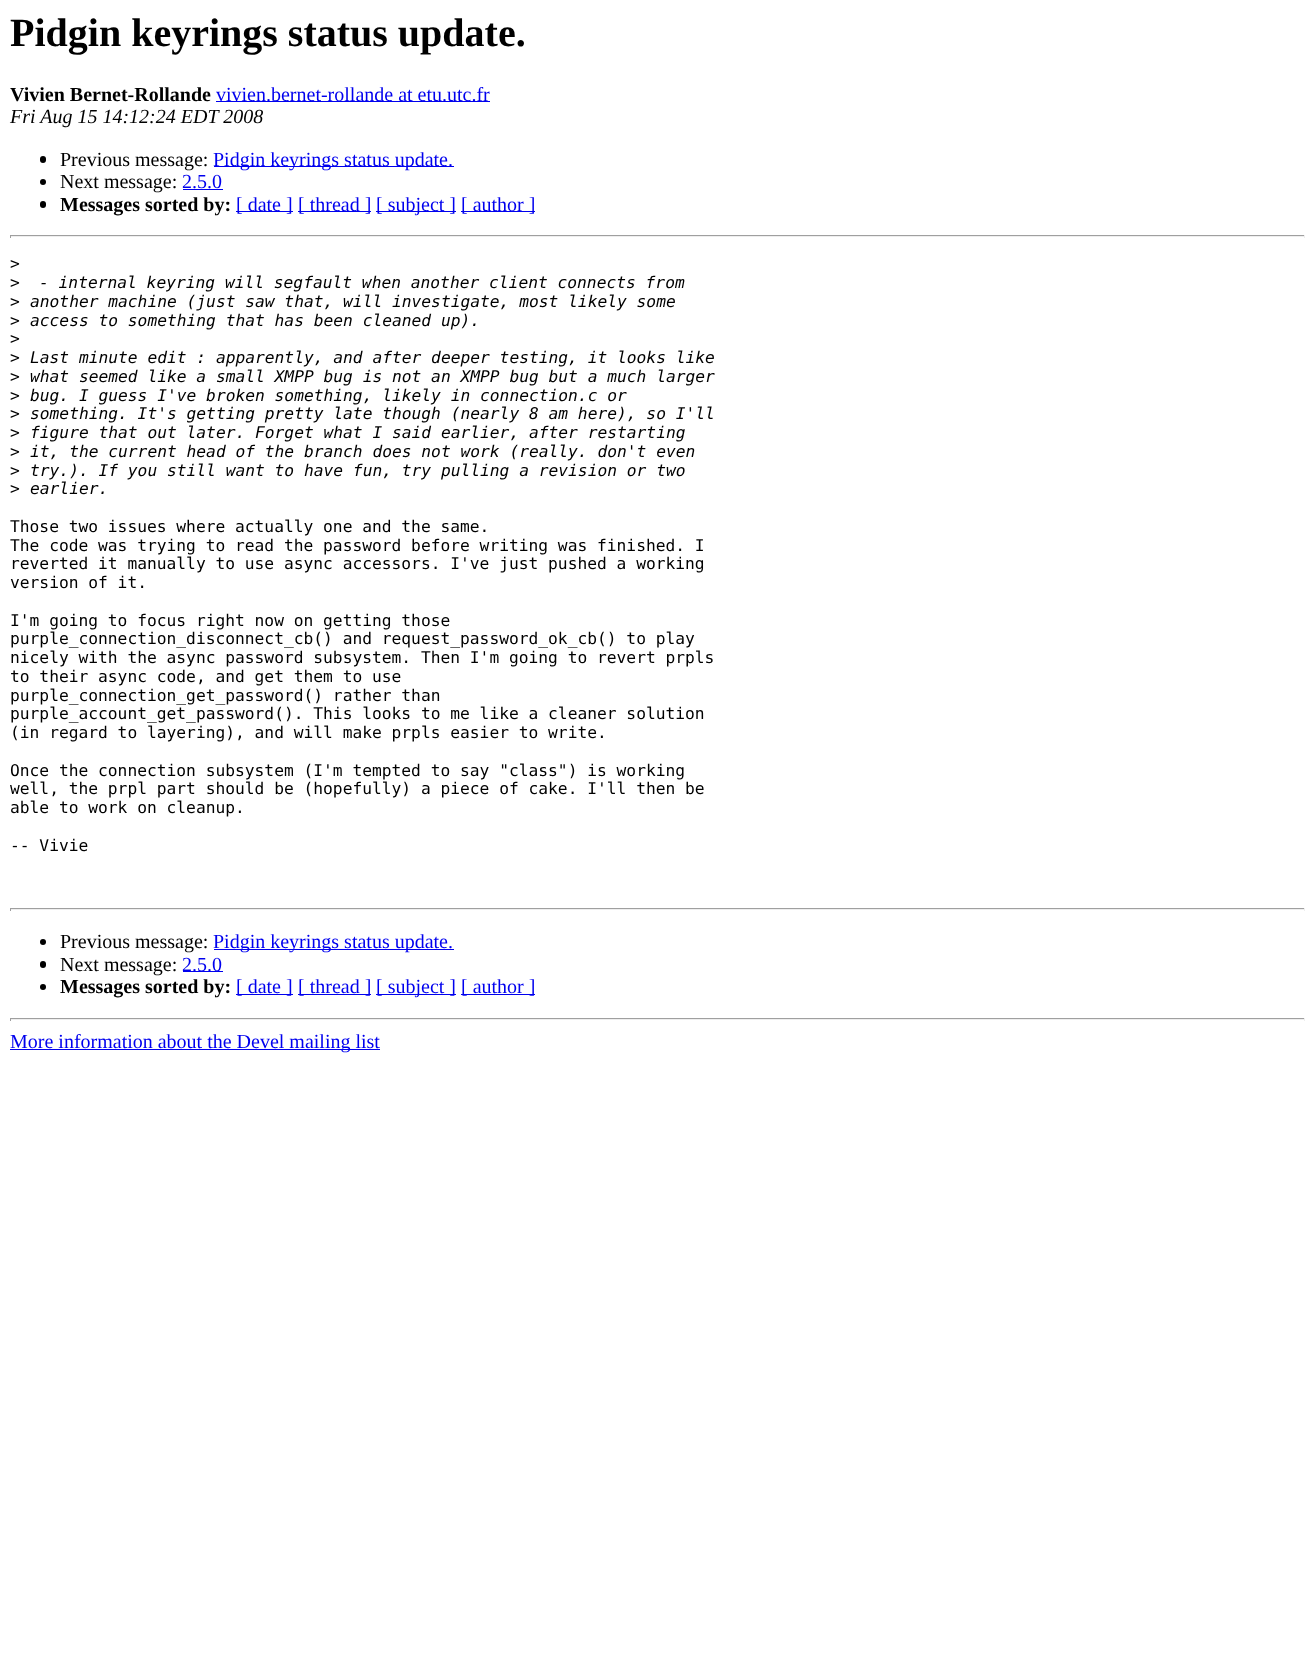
<!DOCTYPE html>
<meta charset="utf-8">
<style>body { margin: 0 } canvas { display: block }</style>
<canvas id="canvas" width="1314" height="1674"></canvas>
<script type="module">
  const canvas = document.getElementById("canvas");
  const g = canvas.getContext("2d");
  g.miterLimit = 4;
  g.fontKerning = "normal";
  function drawText(s, x, y, [font, color]) {
    g.font = font;
    g.fillStyle = color;
    g.fillText(s, x, y);
  }
  function fillBox(x, y, w, h, color) {
    g.fillStyle = color;
    g.fillRect(x, y, w, h);
  }
  function fillRounded(x, y, w, h, r, color) {
    g.fillStyle = color;
    g.beginPath();
    g.roundRect(x, y, w, h, r);
    g.fill();
  }

  const s1 = ["bold 40px Liberation Serif", "#000000"];
  const s2 = ["bold 20px Liberation Serif", "#000000"];
  const s3 = ["20px Liberation Serif", "#0000EE"];
  const s4 = ["italic 20px Liberation Serif", "#000000"];
  const s5 = ["20px Liberation Serif", "#000000"];
  const s6 = ["16.25px DejaVu Sans Mono", "#000000"];
  const s7 = ["italic 16.25px DejaVu Sans Mono", "#000000"];

  fillBox(0, 0, 1314, 1674, "#FFFFFF");
  drawText("Pidgin keyrings status update.", 10, 46, s1);
  drawText("Vivien Bernet-Rollande", 10, 101, s2);
  fillBox(216, 101, 274, 1, "#0000EE");
  drawText("vivien.bernet-rollande at etu.utc.fr", 216, 101, s3);
  drawText("Fri Aug 15 14:12:24 EDT 2008", 10, 123, s4);
  fillRounded(40, 156, 6, 7, 3, "#000000");
  drawText("Previous message:", 60, 166, s5);
  fillBox(214, 166, 240, 1, "#0000EE");
  drawText("Pidgin keyrings status update.", 213, 166, s3);
  g.fillStyle = "#000000";
  g.beginPath();
  g.arc(43, 182, 3, 0, Math.PI * 2);
  g.fill();
  drawText("Next message:", 60, 188, s5);
  drawText("2.5.0", 182, 188, s3);
  fillBox(183, 189, 40, 1, "#0000EE");
  fillRounded(40, 201, 6, 7, 3, "#000000");
  drawText("Messages sorted by:", 60, 211, s2);
  fillBox(236, 211, 57, 1, "#0000EE");
  drawText("[ date ]", 236, 211, s3);
  fillBox(298, 211, 73, 1, "#0000EE");
  drawText("[ thread ]", 298, 211, s3);
  fillBox(376, 211, 80, 1, "#0000EE");
  drawText("[ subject ]", 376, 211, s3);
  fillBox(461, 211, 74, 1, "#0000EE");
  drawText("[ author ]", 461, 211, s3);
  fillBox(10, 235, 1295, 1, "#9F9F9F");
  fillBox(1304, 235, 1, 3, "#EEEEEE");
  fillBox(10, 236, 1295, 1, "#EEEEEE");
  fillBox(10, 235, 1, 3, "#9F9F9F");
  drawText(">", 10, 269, s6);
  drawText(">", 10, 288, s6);
  drawText("- internal keyring will segfault when another client connects from", 39, 288, s7);
  drawText(">", 10, 307, s6);
  drawText("another machine (just saw that, will investigate, most likely some", 30, 307, s7);
  drawText(">", 10, 326, s6);
  drawText("access to something that has been cleaned up).", 30, 326, s7);
  drawText(">", 10, 344, s6);
  drawText(">", 10, 363, s6);
  drawText("Last minute edit : apparently, and after deeper testing, it looks like", 30, 363, s7);
  drawText(">", 10, 382, s6);
  drawText("what seemed like a small XMPP bug is not an XMPP bug but a much larger", 30, 382, s7);
  drawText(">", 10, 401, s6);
  drawText("bug. I guess I've broken something, likely in connection.c or", 30, 401, s7);
  drawText(">", 10, 419, s6);
  drawText("something. It's getting pretty late though (nearly 8 am here), so I'll", 30, 419, s7);
  drawText(">", 10, 438, s6);
  drawText("figure that out later. Forget what I said earlier, after restarting", 30, 438, s7);
  drawText(">", 10, 457, s6);
  drawText("it, the current head of the branch does not work (really. don't even", 30, 457, s7);
  drawText(">", 10, 476, s6);
  drawText("try.). If you still want to have fun, try pulling a revision or two", 30, 476, s7);
  drawText(">", 10, 494, s6);
  drawText("earlier.", 30, 494, s7);
  drawText("Those two issues where actually one and the same.", 10, 532, s6);
  drawText("The code was trying to read the password before writing was finished. I", 10, 551, s6);
  drawText("reverted it manually to use async accessors. I've just pushed a working", 10, 569, s6);
  drawText("version of it.", 10, 588, s6);
  drawText("I'm going to focus right now on getting those", 10, 626, s6);
  drawText("purple_connection_disconnect_cb() and request_password_ok_cb() to play", 10, 644, s6);
  drawText("nicely with the async password subsystem. Then I'm going to revert prpls", 10, 663, s6);
  drawText("to their async code, and get them to use", 10, 682, s6);
  drawText("purple_connection_get_password() rather than", 10, 701, s6);
  drawText("purple_account_get_password(). This looks to me like a cleaner solution", 10, 719, s6);
  drawText("(in regard to layering), and will make prpls easier to write.", 10, 738, s6);
  drawText("Once the connection subsystem (I'm tempted to say \"class\") is working", 10, 776, s6);
  drawText("well, the prpl part should be (hopefully) a piece of cake. I'll then be", 10, 794, s6);
  drawText("able to work on cleanup.", 10, 813, s6);
  drawText("-- Vivie", 10, 851, s6);
  fillBox(10, 908, 1295, 1, "#9F9F9F");
  fillBox(1304, 908, 1, 3, "#EEEEEE");
  fillBox(10, 909, 1295, 1, "#EEEEEE");
  fillBox(10, 908, 1, 3, "#9F9F9F");
  g.fillStyle = "#000000";
  g.beginPath();
  g.arc(43, 942, 3, 0, Math.PI * 2);
  g.fill();
  drawText("Previous message:", 60, 948, s5);
  fillBox(214, 949, 240, 1, "#0000EE");
  drawText("Pidgin keyrings status update.", 213, 948, s3);
  fillRounded(40, 961, 6, 7, 3, "#000000");
  drawText("Next message:", 60, 971, s5);
  fillBox(183, 971, 40, 1, "#0000EE");
  drawText("2.5.0", 182, 971, s3);
  g.fillStyle = "#000000";
  g.beginPath();
  g.arc(43, 987, 3, 0, Math.PI * 2);
  g.fill();
  drawText("Messages sorted by:", 60, 993, s2);
  fillBox(236, 994, 57, 1, "#0000EE");
  drawText("[ date ]", 236, 993, s3);
  fillBox(298, 994, 73, 1, "#0000EE");
  drawText("[ thread ]", 298, 993, s3);
  fillBox(376, 994, 80, 1, "#0000EE");
  drawText("[ subject ]", 376, 993, s3);
  fillBox(461, 994, 74, 1, "#0000EE");
  drawText("[ author ]", 461, 993, s3);
  fillBox(10, 1018, 1295, 1, "#9F9F9F");
  fillBox(1304, 1018, 1, 3, "#EEEEEE");
  fillBox(10, 1019, 1295, 1, "#EEEEEE");
  fillBox(10, 1018, 1, 3, "#9F9F9F");
  fillBox(10, 1049, 370, 1, "#0000EE");
  drawText("More information about the Devel mailing list", 10, 1048, s3);
</script>
